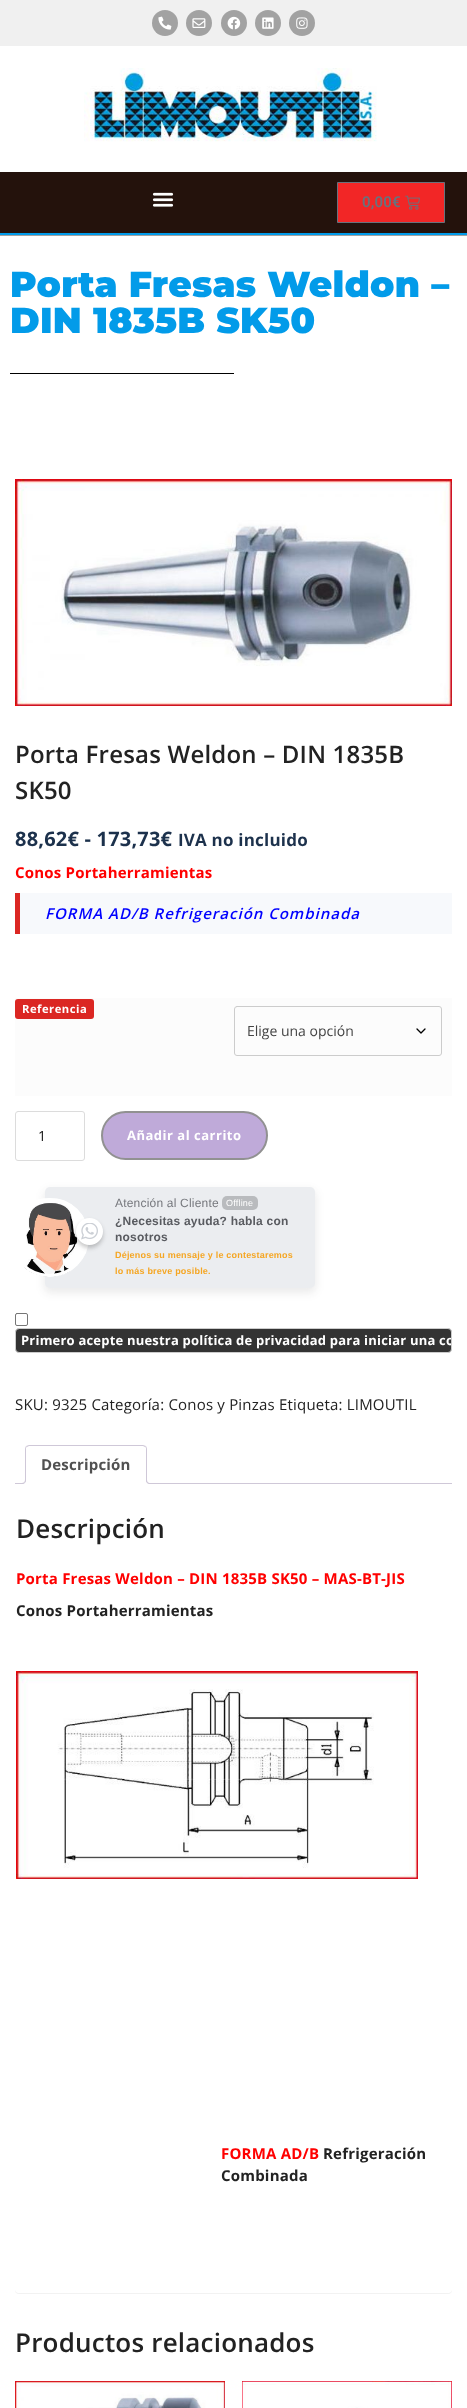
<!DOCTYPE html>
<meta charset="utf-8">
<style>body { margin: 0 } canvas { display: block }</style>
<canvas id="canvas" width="467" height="2408"></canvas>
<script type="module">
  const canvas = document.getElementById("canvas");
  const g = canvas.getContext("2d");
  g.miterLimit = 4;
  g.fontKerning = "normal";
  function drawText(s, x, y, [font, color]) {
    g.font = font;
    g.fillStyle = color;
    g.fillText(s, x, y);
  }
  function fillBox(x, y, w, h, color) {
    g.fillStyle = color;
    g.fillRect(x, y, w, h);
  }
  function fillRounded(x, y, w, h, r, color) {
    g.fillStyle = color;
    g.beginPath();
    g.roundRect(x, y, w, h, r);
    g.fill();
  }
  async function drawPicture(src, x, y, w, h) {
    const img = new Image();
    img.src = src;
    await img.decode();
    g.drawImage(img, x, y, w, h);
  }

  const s1 = ["600 15px Roboto", "#69727D"];
  const s2 = ["900 36px Montserrat", "#029BE9"];
  const s3 = ["600 24px Open Sans", "#222222"];
  const s4 = ["bold 20px Open Sans", "#1C314C"];
  const s5 = ["bold 17px Open Sans", "#1C314C"];
  const s6 = ["bold 15px Open Sans", "#FF0000"];
  const s7 = ["italic 600 15px Open Sans", "#0000FF"];
  const s8 = ["bold 11.25px Open Sans", "#FFFFFF"];
  const s9 = ["14px Open Sans", "#444444"];
  const s10 = ["14px Open Sans", "#121212"];
  const s11 = ["bold 13px Open Sans", "#FFFFFF"];
  const s12 = ["12px Liberation Sans", "#76787D"];
  const s13 = ["9px Liberation Sans", "#FFFFFF"];
  const s14 = ["bold 12px Liberation Sans", "#595B60"];
  const s15 = ["bold 9px Liberation Sans", "#F5A623"];
  const s16 = ["15px Open Sans", "#222222"];
  const s17 = ["bold 15px Open Sans", "#515151"];
  const s18 = ["600 26px Open Sans", "#222222"];
  const s19 = ["bold 15px Open Sans", "#222222"];

  fillBox(0, 0, 467, 2408, "#FFFFFF");
  fillBox(0, 0, 467, 46, "#F0F0F0");
  g.fillStyle = "#A2A2A2";
  g.beginPath();
  g.arc(165, 23, 13, 0, Math.PI * 2);
  g.fill();
  await drawPicture("pic1.png", 158, 16, 14, 14);
  g.beginPath();
  g.arc(199, 23, 13, 0, Math.PI * 2);
  g.fill();
  await drawPicture("pic2.png", 192, 18, 14, 10);
  g.beginPath();
  g.arc(234, 23, 13, 0, Math.PI * 2);
  g.fill();
  await drawPicture("pic3.png", 227, 16, 14, 14);
  g.beginPath();
  g.arc(268, 23, 13, 0, Math.PI * 2);
  g.fill();
  await drawPicture("pic4.png", 262, 17, 12, 12);
  g.beginPath();
  g.arc(302, 23, 13, 0, Math.PI * 2);
  g.fill();
  await drawPicture("pic5.png", 296, 17, 12, 12);
  await drawPicture("pic6.png", 84, 68, 293, 74);
  fillBox(0, 172, 467, 61, "#24120C");
  fillBox(0, 233, 467, 2, "#029BE9");
  await drawPicture("pic7.png", 152, 192, 22, 15);
  g.fillStyle = "#F22626";
  g.beginPath();
  g.rect(337.5, 182.5, 107, 40);
  g.fill();
  g.strokeStyle = "#69727D";
  g.stroke();
  g.letterSpacing = "0.2px";
  drawText("0,00€", 362, 207, s1);
  await drawPicture("pic8.png", 405, 195, 15, 15);
  fillBox(0, 235, 467, 1, "#A2A2A2");
  drawText("Porta Fresas Weldon –", 10, 297, s2);
  drawText("DIN 1835B SK50", 10, 333, s2);
  fillBox(10, 373, 224, 1, "#000000");
  await drawPicture("pic9.png", 15, 479, 437, 227);
  drawText("Porta Fresas Weldon – DIN 1835B", 15, 763, s3);
  drawText("SK50", 15, 799, s3);
  drawText("88,62€ - 173,73€", 15, 846, s4);
  drawText("IVA no incluido", 178, 846, s5);
  drawText("Conos Portaherramientas", 15, 878, s6);
  fillBox(20, 893, 432, 41, "#F7F9FC");
  fillBox(15, 893, 5, 41, "#DB2723");
  g.letterSpacing = "1px";
  drawText("FORMA AD/B Refrigeración Combinada", 45, 919, s7);
  fillBox(15, 998, 437, 98, "#FCFCFC");
  fillRounded(15, 999, 79, 20, 3, "#DB2723");
  g.letterSpacing = "0.5px";
  drawText("Referencia", 22, 1013, s8);
  g.beginPath();
  g.moveTo(417, 1029);
  g.lineTo(421, 1033);
  g.lineTo(425, 1029);
  g.strokeStyle = "#000000";
  g.lineWidth = 1.3;
  g.lineCap = "round";
  g.lineJoin = "round";
  g.stroke();
  g.beginPath();
  g.roundRect(234.5, 1006.5, 207, 49, 2.5);
  g.strokeStyle = "#CCCCCC";
  g.lineWidth = 1;
  g.lineJoin = "miter";
  g.stroke();
  g.letterSpacing = "0px";
  drawText("Elige una opción", 247, 1036, s9);
  g.beginPath();
  g.roundRect(15.5, 1111.5, 69, 49, 2.5);
  g.strokeStyle = "#DCDCDC";
  g.stroke();
  drawText("1", 38, 1141, s10);
  g.fillStyle = "#BFAAD9";
  g.beginPath();
  g.roundRect(102, 1112, 165, 47, 23.5);
  g.fill();
  g.strokeStyle = "#919191";
  g.lineWidth = 2;
  g.stroke();
  g.letterSpacing = "0.5px";
  drawText("Añadir al carrito", 127, 1140, s11);
  g.fillStyle = "rgba(32, 32, 37, 0.09)";
  g.filter = "blur(4px)";
  g.beginPath();
  g.roundRect(44, 1190, 272, 103, 6);
  g.fill();
  g.filter = "none";
  fillRounded(45, 1187, 270, 101, 5, "#EBEDF0");
  await drawPicture("pic10.png", 24, 1198, 62, 79);
  g.beginPath();
  g.arc(49.5, 1237.5, 38, 0, Math.PI * 2);
  g.strokeStyle = "#FFFFFF";
  g.lineWidth = 3;
  g.stroke();
  g.fillStyle = "rgba(39, 38, 38, 0.26)";
  g.filter = "blur(2px)";
  g.beginPath();
  g.roundRect(76, 1221, 27, 27, 13.5);
  g.fill();
  g.filter = "none";
  g.fillStyle = "#FFFFFF";
  g.beginPath();
  g.arc(89.5, 1231.5, 13.5, 0, Math.PI * 2);
  g.fill();
  await drawPicture("pic11.png", 81, 1223, 17, 17);
  g.letterSpacing = "0.2px";
  drawText("Atención al Cliente", 115, 1207, s12);
  fillRounded(222, 1196, 36, 14, 5, "#B9BBBE");
  drawText("Offline", 226, 1206, s13);
  drawText("¿Necesitas ayuda? habla con", 115, 1225, s14);
  drawText("nosotros", 115, 1241, s14);
  drawText("Déjenos su mensaje y le contestaremos", 115, 1258, s15);
  drawText("lo más breve posible.", 115, 1274, s15);
  g.beginPath();
  g.roundRect(15.5, 1313.5, 12, 12, 1.5);
  g.strokeStyle = "#767676";
  g.lineWidth = 1;
  g.stroke();
  g.fillStyle = "#333333";
  g.beginPath();
  g.roundRect(15.5, 1328.5, 436, 24, 3.5);
  g.fill();
  g.strokeStyle = "#CCCCCC";
  g.stroke();
  g.save();
  g.beginPath();
  g.roundRect(16, 1329, 435, 23, 3);
  g.clip();
  drawText("Primero acepte nuestra política de privacidad para iniciar una co", 21, 1345, s11);
  g.restore();
  drawText("SKU: 9325 Categoría: Conos y Pinzas Etiqueta: LIMOUTIL", 15, 1410, s16);
  fillBox(15, 1483, 437, 1, "#CFC8D8");
  g.fillStyle = "#FFFFFF";
  g.beginPath();
  g.roundRect(25, 1445, 122, 39, [4, 4, 0, 0]);
  g.fill();
  g.fillStyle = "#CFC8D8";
  g.beginPath();
  g.moveTo(29, 1445);
  g.lineTo(26, 1446);
  g.lineTo(27, 1447);
  g.lineTo(29, 1446);
  g.lineTo(143, 1446);
  g.lineTo(145, 1447);
  g.lineTo(146, 1446);
  g.lineTo(143, 1445);
  g.closePath();
  g.fill();
  g.beginPath();
  g.moveTo(147, 1484);
  g.lineTo(147, 1449);
  g.bezierCurveTo(147, 1448, 146.5, 1447, 146, 1446);
  g.lineTo(145, 1447);
  g.bezierCurveTo(146, 1447, 146, 1448, 146, 1449);
  g.lineTo(146, 1483);
  g.closePath();
  g.fill();
  g.fillStyle = "#FFFFFF";
  g.beginPath();
  g.moveTo(147, 1484);
  g.lineTo(146, 1483);
  g.lineTo(26, 1483);
  g.lineTo(25, 1484);
  g.closePath();
  g.fill();
  g.fillStyle = "#CFC8D8";
  g.beginPath();
  g.moveTo(25, 1484);
  g.lineTo(26, 1483);
  g.lineTo(26, 1449);
  g.bezierCurveTo(26, 1448, 26, 1447, 27, 1447);
  g.lineTo(26, 1446);
  g.bezierCurveTo(25.5, 1447, 25, 1448, 25, 1449);
  g.closePath();
  g.fill();
  drawText("Descripción", 41, 1470, s17);
  g.save();
  g.beginPath();
  g.rect(15, 1445, 437, 39);
  g.clip();
  g.fillStyle = "#FFFFFF";
  g.beginPath();
  g.moveTo(23, 1484);
  g.lineTo(23, 1486);
  g.bezierCurveTo(26.5, 1486, 28, 1484.5, 28, 1481);
  g.lineTo(26, 1481);
  g.bezierCurveTo(25.5, 1482.5, 24.5, 1483.5, 23, 1484);
  g.closePath();
  g.fill();
  g.restore();
  g.fillStyle = "#CFC8D8";
  g.beginPath();
  g.moveTo(21, 1479);
  g.lineTo(26, 1479);
  g.bezierCurveTo(26, 1482.5, 24.5, 1484, 21, 1484);
  g.closePath();
  g.moveTo(21, 1479);
  g.lineTo(25, 1479);
  g.bezierCurveTo(25, 1482, 24, 1483, 21, 1483);
  g.closePath();
  g.fill("evenodd");
  g.save();
  g.beginPath();
  g.rect(15, 1445, 437, 39);
  g.clip();
  g.fillStyle = "#FFFFFF";
  g.beginPath();
  g.moveTo(144, 1481);
  g.bezierCurveTo(144, 1484.5, 145.5, 1486, 149, 1486);
  g.lineTo(149, 1484);
  g.bezierCurveTo(147.5, 1483.5, 146.5, 1482.5, 146, 1481);
  g.closePath();
  g.fill();
  g.restore();
  g.beginPath();
  g.moveTo(146, 1479);
  g.lineTo(151, 1479);
  g.lineTo(151, 1484);
  g.bezierCurveTo(148.5, 1484, 146, 1483, 146, 1480);
  g.closePath();
  g.moveTo(147, 1479);
  g.lineTo(151, 1479);
  g.lineTo(151, 1483);
  g.bezierCurveTo(149, 1483, 147, 1482.5, 147, 1480);
  g.closePath();
  g.fill("evenodd");
  g.fillStyle = "rgba(0, 0, 0, 0.05)";
  g.filter = "blur(0.5px)";
  g.beginPath();
  g.roundRect(15, 1509, 437, 785, 4);
  g.fill();
  g.filter = "none";
  fillRounded(15, 1508, 437, 785, 4, "#FFFFFF");
  drawText("Descripción", 16, 1538, s18);
  drawText("Porta Fresas Weldon – DIN 1835B SK50 – MAS-BT-JIS", 16, 1584, s6);
  drawText("Conos Portaherramientas", 16, 1616, s19);
  await drawPicture("pic12.png", 16, 1671, 402, 208);
  drawText("FORMA AD/B", 221, 2159, s6);
  drawText("Refrigeración", 323, 2159, s19);
  drawText("Combinada", 221, 2181, s19);
  drawText("Productos relacionados", 15, 2352, s18);
  await drawPicture("pic13.png", 15, 2381, 210, 27);
  await drawPicture("pic14.png", 242, 2381, 210, 27);
</script>
